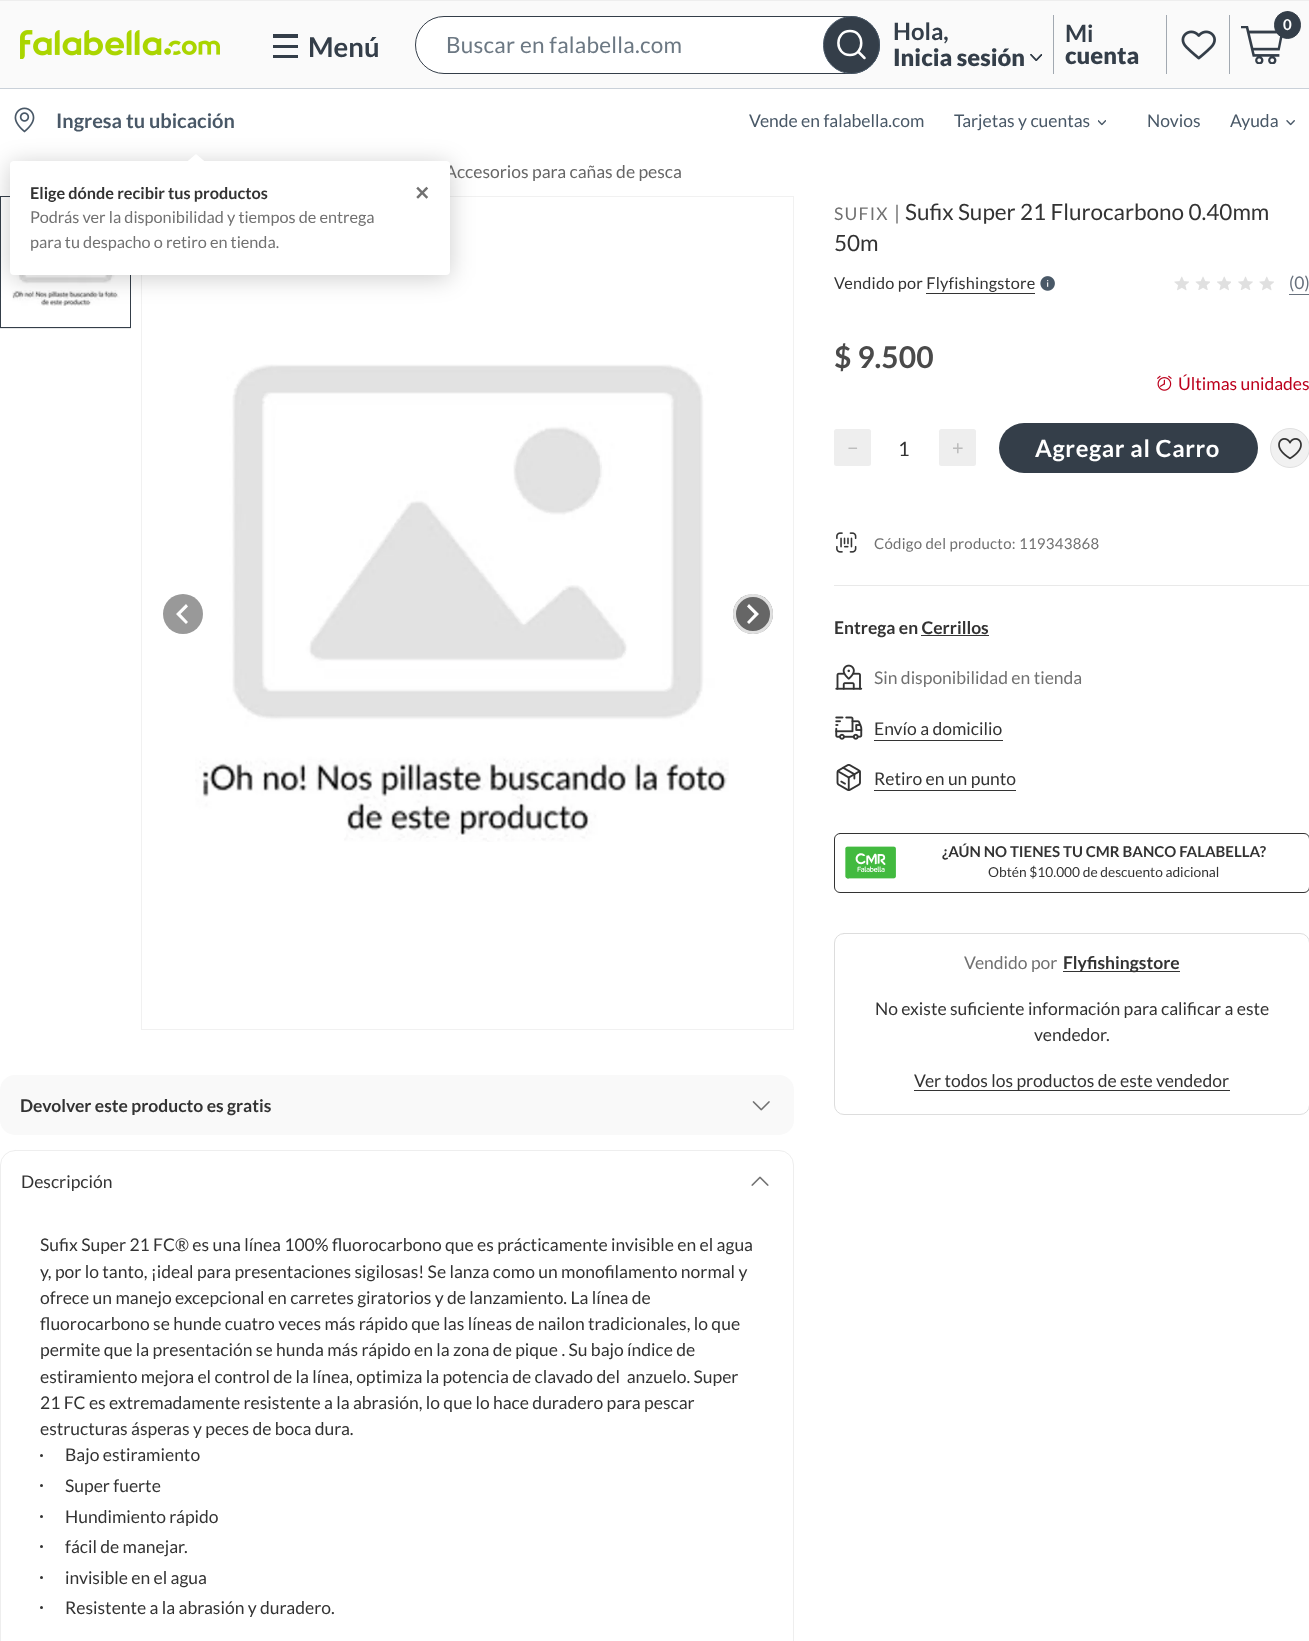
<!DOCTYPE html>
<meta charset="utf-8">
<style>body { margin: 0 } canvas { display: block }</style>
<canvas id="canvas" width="1309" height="1641"></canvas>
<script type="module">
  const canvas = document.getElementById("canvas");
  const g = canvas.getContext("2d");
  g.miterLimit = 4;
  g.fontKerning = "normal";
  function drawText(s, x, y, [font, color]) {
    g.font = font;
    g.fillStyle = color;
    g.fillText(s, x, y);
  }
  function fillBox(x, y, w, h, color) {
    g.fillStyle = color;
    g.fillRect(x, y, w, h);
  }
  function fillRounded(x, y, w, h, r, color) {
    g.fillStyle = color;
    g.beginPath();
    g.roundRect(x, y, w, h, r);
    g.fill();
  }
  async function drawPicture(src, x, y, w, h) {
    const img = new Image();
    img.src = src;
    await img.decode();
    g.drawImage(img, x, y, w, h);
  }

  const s1 = ["bold 27.5px Lato", "#343E49"];
  const s2 = ["22.5px Lato", "#6C7883"];
  const s3 = ["bold 23.75px Lato", "#343E49"];
  const s4 = ["900 23.75px Lato", "#343E49"];
  const s5 = ["bold 15px Lato", "#FFFFFF"];
  const s6 = ["bold 20px Lato", "#495867"];
  const s7 = ["17.5px Lato", "#666666"];
  const s8 = ["bold 16.25px Lato", "#333333"];
  const s9 = ["bold 19px DejaVu Sans", "#717171"];
  const s10 = ["16.25px Lato", "#717171"];
  const s11 = ["17.5px Lato", "#495867"];
  const s12 = ["17.5px Lato", "#717171"];
  const s13 = ["20px Lato", "#717171"];
  const s14 = ["22.5px Lato", "#333333"];
  const s15 = ["16.25px Lato", "#333333"];
  const s16 = ["17.5px Lato", "#68717D"];
  const s17 = ["bold 30px Lato", "#4A4A4A"];
  const s18 = ["17.5px Lato", "#BC001C"];
  const s19 = ["20px Lato", "#BBBBBB"];
  const s20 = ["20px Lato", "#333333"];
  const s21 = ["bold 23.75px Lato", "#FFFFFF"];
  const s22 = ["15px Lato", "#717171"];
  const s23 = ["bold 17.5px Lato", "#333333"];
  const s24 = ["17.5px Lato", "#333333"];
  const s25 = ["bold 15px Lato", "#333333"];
  const s26 = ["13.75px Lato", "#333333"];

  fillBox(0, 0, 1309, 1641, "#FFFFFF");
  fillBox(0, 1, 1309, 87, "#FAFAFA");
  fillBox(0, 0, 1309, 1, "#EEEEEE");
  await drawPicture("pic1.png", 20, 30, 200, 29);
  fillBox(273, 45, 25, 3, "#343E49");
  fillBox(273, 34, 25, 4, "#343E49");
  fillBox(273, 55, 25, 3, "#343E49");
  drawText("Menú", 308, 57, s1);
  g.fillStyle = "#FFFFFF";
  g.beginPath();
  g.roundRect(415.5, 16.5, 464, 57, 28.5);
  g.fill();
  g.strokeStyle = "#343E49";
  g.stroke();
  g.letterSpacing = "0.25px";
  drawText("Buscar en falabella.com", 446, 53, s2);
  g.fillStyle = "#343E49";
  g.beginPath();
  g.roundRect(823.5, 16.5, 56, 57, 28);
  g.fill();
  g.strokeStyle = "#495867";
  g.stroke();
  g.beginPath();
  g.moveTo(850, 55);
  g.bezierCurveTo(865, 55, 865, 31, 850, 31);
  g.bezierCurveTo(834.5, 31, 834.5, 55, 850, 55);
  g.closePath();
  g.moveTo(864.5, 58);
  g.lineTo(858, 51.5);
  g.strokeStyle = "#FFFFFF";
  g.lineWidth = 2.5;
  g.lineCap = "round";
  g.lineJoin = "round";
  g.stroke();
  fillBox(1053, 15, 1, 59, "#A2A9B1");
  g.letterSpacing = "0px";
  drawText("Hola,", 893, 40, s3);
  drawText("Inicia sesión", 893, 66, s4);
  await drawPicture("pic2.png", 1030, 54, 13, 7);
  fillBox(1166, 15, 1, 59, "#A2A9B1");
  drawText("Mi", 1065, 42, s3);
  drawText("cuenta", 1065, 64, s4);
  fillBox(1229, 15, 1, 59, "#A2A9B1");
  await drawPicture("pic3.png", 1181, 30, 35, 30);
  await drawPicture("pic4.png", 1241, 26, 42, 38);
  g.fillStyle = "#343E49";
  g.beginPath();
  g.roundRect(1274.5, 11.5, 26, 27, 13);
  g.fill();
  g.strokeStyle = "#343E49";
  g.lineWidth = 1;
  g.lineJoin = "miter";
  g.stroke();
  drawText("0", 1283, 30, s5);
  fillBox(0, 88, 1309, 1, "#CAD1D9");
  await drawPicture("pic5.png", 14, 107, 21, 26);
  drawText("Ingresa tu ubicación", 56, 128, s6);
  g.save();
  g.beginPath();
  g.rect(0, 196, 131, 525);
  g.clip();
  g.strokeStyle = "#E6E7E8";
  g.strokeRect(-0.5, 195.5, 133, 133);
  g.restore();
  g.strokeRect(0.5, 196.5, 130, 131);
  await drawPicture("pic20.png", 12, 274, 108, 32);
  g.strokeStyle = "#F1F1F1";
  g.strokeRect(141.5, 196.5, 652, 833);
  g.fillStyle = "rgba(0, 0, 0, 0.2)";
  g.filter = "blur(12.5px)";
  g.beginPath();
  g.roundRect(10, 164, 440, 114, 4);
  g.fill();
  g.filter = "none";
  drawText("Accesorios para cañas de pesca", 445, 178, s7);
  fillRounded(10, 161, 440, 114, 4, "#FFFFFF");
  g.beginPath();
  g.moveTo(206, 162.5);
  g.lineTo(186, 162.5);
  g.lineTo(196, 154);
  g.closePath();
  g.fill();
  drawText("Elige dónde recibir tus productos", 30, 199, s8);
  drawText("✕", 414, 200, s9);
  drawText("Podrás ver la disponibilidad y tiempos de entrega", 30, 223, s10);
  drawText("para tu despacho o retiro en tienda.", 30, 248, s10);
  drawText("Vende en falabella.com", 749, 127, s11);
  drawText("Tarjetas y cuentas", 954, 127, s11);
  await drawPicture("pic6.png", 1098, 120, 8, 6);
  drawText("Novios", 1147, 127, s11);
  drawText("Ayuda", 1230, 127, s11);
  await drawPicture("pic7.png", 1286, 120, 9, 6);
  g.letterSpacing = "1.25px";
  drawText("SUFIX", 834, 220, s12);
  g.letterSpacing = "0px";
  drawText("|", 894, 220, s13);
  drawText("Sufix Super 21 Flurocarbono 0.40mm", 905, 220, s14);
  drawText("50m", 834, 251, s14);
  g.letterSpacing = "0.2px";
  drawText("Vendido por Flyfishingstore", 834, 289, s15);
  await drawPicture("pic8.png", 1040, 276, 15, 15);
  fillBox(926, 293, 109, 1, "#333333");
  await drawPicture("pic9.png", 1174, 276, 15, 15);
  await drawPicture("pic10.png", 1195, 276, 15, 14);
  await drawPicture("pic11.png", 1217, 276, 14, 15);
  await drawPicture("pic12.png", 1238, 276, 15, 14);
  await drawPicture("pic9.png", 1259, 276, 15, 15);
  fillBox(1289, 294, 20, 1, "#68717D");
  g.letterSpacing = "0px";
  drawText("(0)", 1289, 289, s16);
  drawText("$ 9.500", 834, 368, s17);
  await drawPicture("pic13.png", 1157, 375, 15, 16);
  drawText("Últimas unidades", 1178, 390, s18);
  fillRounded(834, 429, 37, 37, 2.5, "#EEEEEE");
  drawText("−", 847, 455, s19);
  drawText("1", 898, 456, s20);
  fillRounded(939, 429, 37, 37, 2.5, "#EEEEEE");
  drawText("+", 952, 455, s19);
  fillRounded(999, 423, 259, 50, 25, "#343E49");
  g.letterSpacing = "0.6px";
  drawText("Agregar al Carro", 1035, 457, s21);
  g.fillStyle = "#F1F1F1";
  g.beginPath();
  g.arc(1290, 448, 19.5, 0, Math.PI * 2);
  g.fill();
  g.strokeStyle = "#E0E0E0";
  g.stroke();
  await drawPicture("pic14.png", 1278, 438, 24, 22);
  await drawPicture("pic15.png", 836, 532, 21, 21);
  g.letterSpacing = "0.25px";
  drawText("Código del producto: 119343868", 874, 549, s22);
  fillBox(834, 585, 475, 1, "#E9E9E9");
  g.letterSpacing = "0px";
  drawText("Entrega en Cerrillos", 834, 634, s23);
  fillBox(921, 635, 68, 1, "#333333");
  await drawPicture("pic16.png", 835, 664, 28, 26);
  drawText("Sin disponibilidad en tienda", 874, 684, s12);
  await drawPicture("pic17.png", 835, 716, 28, 24);
  drawText("Envío a domicilio", 874, 735, s24);
  fillBox(874, 740, 129, 1, "#333333");
  await drawPicture("pic18.png", 836, 764, 25, 27);
  drawText("Retiro en un punto", 874, 785, s24);
  fillBox(874, 790, 142, 1, "#333333");
  g.beginPath();
  g.roundRect(834.5, 833.5, 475, 59, 5.5);
  g.strokeStyle = "#333333";
  g.stroke();
  await drawPicture("pic19.png", 845, 846, 51, 33);
  drawText("¿AÚN NO TIENES TU CMR BANCO FALABELLA?", 942, 857, s25);
  drawText("Obtén $10.000 de descuento adicional", 988, 877, s26);
  g.beginPath();
  g.roundRect(834.5, 933.5, 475, 181, 9.5);
  g.strokeStyle = "#DDDDDD";
  g.stroke();
  drawText("Vendido por", 964, 969, s12);
  fillBox(1063, 971, 117, 1, "#333333");
  drawText("Flyfishingstore", 1063, 969, s23);
  drawText("No existe suficiente información para calificar a este", 875, 1015, s24);
  drawText("vendedor.", 1034, 1041, s24);
  drawText("Ver todos los productos de este vendedor", 914, 1087, s24);
  fillBox(914, 1090, 316, 1, "#333333");
  await drawPicture("pic21.png", 195, 364, 534, 478);
  g.fillStyle = "#999999";
  g.beginPath();
  g.arc(183, 614, 20, 0, Math.PI * 2);
  g.fill();
  g.fillStyle = "#FFFFFF";
  g.beginPath();
  g.moveTo(188, 606.5);
  g.lineTo(180.5, 614);
  g.lineTo(188, 622);
  g.lineTo(186, 624);
  g.lineTo(176, 614);
  g.lineTo(186, 604);
  g.closePath();
  g.fill();
  g.fillStyle = "#666666";
  g.beginPath();
  g.arc(753, 614, 20, 0, Math.PI * 2);
  g.fill();
  g.beginPath();
  g.arc(753, 614, 18.5, 0, Math.PI * 2);
  g.strokeStyle = "rgba(255, 255, 255, 0.8)";
  g.lineWidth = 3;
  g.stroke();
  g.fillStyle = "#FFFFFF";
  g.beginPath();
  g.moveTo(749, 604);
  g.lineTo(759, 614);
  g.lineTo(749, 624);
  g.lineTo(747, 622);
  g.lineTo(754.5, 614);
  g.lineTo(747, 606.5);
  g.closePath();
  g.fill();
  fillRounded(0, 1075, 794, 60, 15, "#F9F9F9");
  drawText("Devolver este producto es gratis", 20, 1112, s23);
  await drawPicture("pic22.png", 752, 1101, 18, 10);
  g.beginPath();
  g.roundRect(0.5, 1150.5, 793, 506, 14.5);
  g.strokeStyle = "#EEEEEE";
  g.lineWidth = 1;
  g.stroke();
  drawText("Descripción", 21, 1188, s24);
  await drawPicture("pic23.png", 751, 1176, 18, 10);
  drawText("Sufix Super 21 FC® es una línea 100% fluorocarbono que es prácticamente invisible en el agua", 40, 1251, s24);
  drawText("y, por lo tanto, ¡ideal para presentaciones sigilosas! Se lanza como un monofilamento normal y", 40, 1278, s24);
  drawText("ofrece un manejo excepcional en carretes giratorios y de lanzamiento. La línea de", 40, 1304, s24);
  drawText("fluorocarbono se hunde cuatro veces más rápido que las líneas de nailon tradicionales, lo que", 40, 1330, s24);
  drawText("permite que la presentación se hunda más rápido en la zona de pique . Su bajo índice de", 40, 1356, s24);
  drawText("estiramiento mejora el control de la línea, optimiza la potencia de clavado del  anzuelo. Super", 40, 1383, s24);
  drawText("21 FC es extremadamente resistente a la abrasión, lo que lo hace duradero para pescar", 40, 1409, s24);
  drawText("estructuras ásperas y peces de boca dura.", 40, 1435, s24);
  g.beginPath();
  g.arc(41.5, 1455.5, 1.5, 0, Math.PI * 2);
  g.fill();
  drawText("Bajo estiramiento", 65, 1461, s24);
  g.beginPath();
  g.arc(41.5, 1485.5, 1.5, 0, Math.PI * 2);
  g.fill();
  drawText("Super fuerte", 65, 1492, s24);
  g.beginPath();
  g.arc(41.5, 1516.5, 1.5, 0, Math.PI * 2);
  g.fill();
  drawText("Hundimiento rápido", 65, 1523, s24);
  g.beginPath();
  g.arc(41.5, 1546.5, 1.5, 0, Math.PI * 2);
  g.fill();
  drawText("fácil de manejar.", 65, 1553, s24);
  g.beginPath();
  g.arc(41.5, 1577.5, 1.5, 0, Math.PI * 2);
  g.fill();
  drawText("invisible en el agua", 65, 1584, s24);
  g.beginPath();
  g.arc(41.5, 1607.5, 1.5, 0, Math.PI * 2);
  g.fill();
  drawText("Resistente a la abrasión y duradero.", 65, 1614, s24);
</script>
